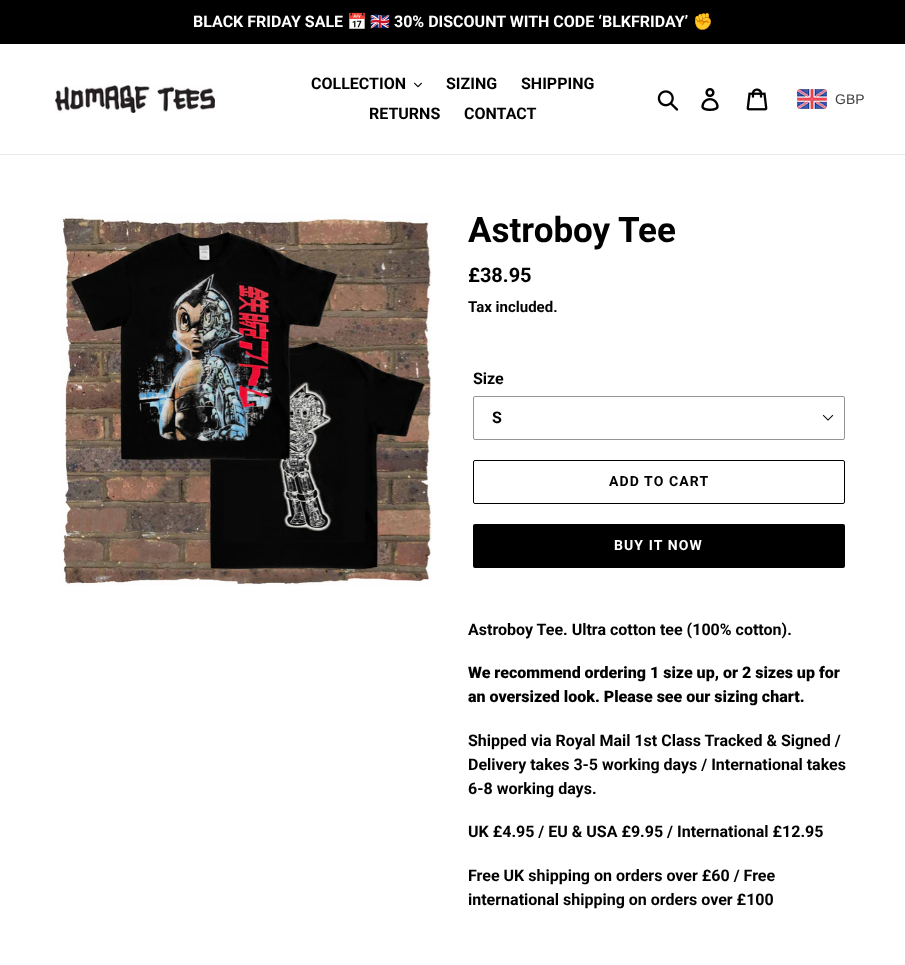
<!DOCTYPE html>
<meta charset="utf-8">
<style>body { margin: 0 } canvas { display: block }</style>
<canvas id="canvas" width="905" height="965"></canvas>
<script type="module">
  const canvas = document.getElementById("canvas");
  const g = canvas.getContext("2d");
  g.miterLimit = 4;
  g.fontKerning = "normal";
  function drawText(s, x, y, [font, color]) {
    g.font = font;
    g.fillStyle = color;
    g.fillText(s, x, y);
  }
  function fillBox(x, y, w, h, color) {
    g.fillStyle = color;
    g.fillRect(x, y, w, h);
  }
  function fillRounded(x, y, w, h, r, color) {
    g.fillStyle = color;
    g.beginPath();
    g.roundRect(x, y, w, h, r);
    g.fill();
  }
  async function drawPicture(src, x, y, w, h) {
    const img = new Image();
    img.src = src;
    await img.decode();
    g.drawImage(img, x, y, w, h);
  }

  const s1 = ["bold 16px Roboto", "#FFFFFF"];
  const s2 = ["bold 16px Noto Color Emoji", "#FFFFFF"];
  const s3 = ["bold 16px Roboto", "#000000"];
  const s4 = ["14px Liberation Sans", "#403F3F"];
  const s5 = ["bold 35px Roboto", "#000000"];
  const s6 = ["bold 20px Roboto", "#000000"];
  const s7 = ["bold 15px Roboto", "#000000"];
  const s8 = ["bold 14px Roboto", "#000000"];
  const s9 = ["bold 14px Roboto", "#FFFFFF"];
  const s10 = ["900 16px Roboto", "#000000"];

  fillBox(0, 0, 905, 965, "#FFFFFF");
  fillBox(0, 0, 905, 44, "#000000");
  drawText("BLACK FRIDAY SALE", 193, 27, s1);
  drawText("📅", 347, 27, s2);
  drawText("🇬🇧", 370, 27, s2);
  drawText("30% DISCOUNT WITH CODE ‘BLKFRIDAY’", 394, 27, s1);
  drawText("✊", 693, 27, s2);
  fillBox(0, 154, 905, 1, "#E8E9EB");
  await drawPicture("pic1.png", 55, 85, 160, 28);
  drawText("COLLECTION", 311, 89, s3);
  await drawPicture("pic2.png", 414, 82, 8, 6);
  drawText("SIZING", 446, 89, s3);
  drawText("SHIPPING", 521, 89, s3);
  drawText("RETURNS", 369, 119, s3);
  drawText("CONTACT", 464, 119, s3);
  await drawPicture("pic3.png", 657, 90, 22, 21);
  await drawPicture("pic4.png", 701, 88, 18, 23);
  await drawPicture("pic5.png", 746, 88, 22, 23);
  await drawPicture("pic6.png", 797, 89, 30, 20);
  drawText("GBP", 835, 104, s4);
  await drawPicture("pic7.png", 60, 214, 372, 372);
  drawText("Astroboy Tee", 468, 242, s5);
  drawText("£38.95", 468, 282, s6);
  drawText("Tax included.", 468, 312, s7);
  drawText("Size", 473, 384, s3);
  await drawPicture("pic8.png", 822, 414, 12, 7);
  g.beginPath();
  g.roundRect(473.5, 396.5, 371, 43, 1.5);
  g.strokeStyle = "#949494";
  g.stroke();
  drawText("S", 492, 423, s3);
  g.beginPath();
  g.roundRect(473.5, 460.5, 371, 43, 1.5);
  g.strokeStyle = "#000000";
  g.stroke();
  g.letterSpacing = "1.1px";
  drawText("ADD TO CART", 609, 486, s8);
  fillRounded(473, 524, 372, 44, 2, "#000000");
  drawText("BUY IT NOW", 614, 550, s9);
  g.letterSpacing = "0px";
  drawText("Astroboy Tee. Ultra cotton tee (100% cotton).", 468, 635, s3);
  drawText("We recommend ordering 1 size up, or 2 sizes up for", 468, 678, s10);
  drawText("an oversized look. Please see our sizing chart.", 468, 702, s10);
  drawText("Shipped via Royal Mail 1st Class Tracked & Signed /", 468, 746, s3);
  drawText("Delivery takes 3-5 working days / International takes", 468, 770, s3);
  drawText("6-8 working days.", 468, 794, s3);
  drawText("UK £4.95 / EU & USA £9.95 / International £12.95", 468, 837, s3);
  drawText("Free UK shipping on orders over £60 / Free", 468, 881, s3);
  drawText("international shipping on orders over £100", 468, 905, s3);
</script>
